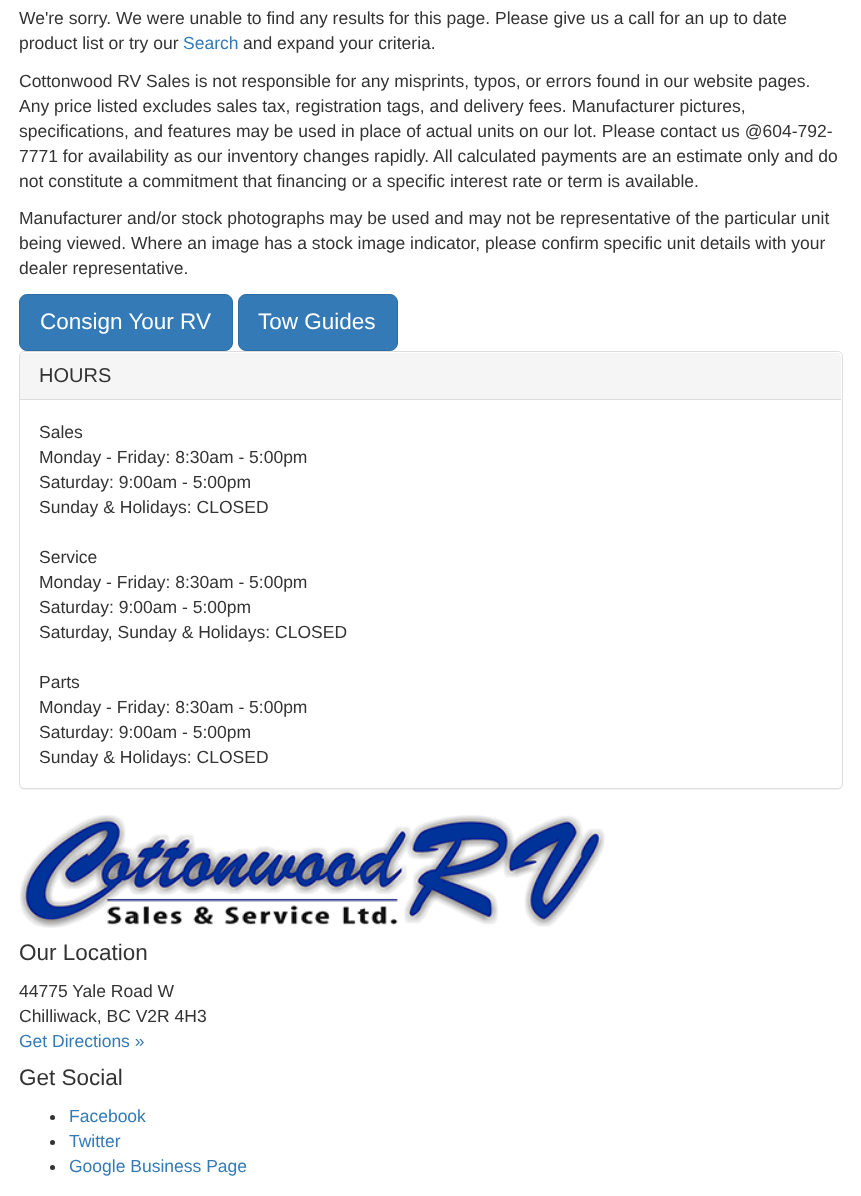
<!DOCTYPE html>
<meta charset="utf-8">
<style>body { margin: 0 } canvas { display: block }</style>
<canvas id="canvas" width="861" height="1196"></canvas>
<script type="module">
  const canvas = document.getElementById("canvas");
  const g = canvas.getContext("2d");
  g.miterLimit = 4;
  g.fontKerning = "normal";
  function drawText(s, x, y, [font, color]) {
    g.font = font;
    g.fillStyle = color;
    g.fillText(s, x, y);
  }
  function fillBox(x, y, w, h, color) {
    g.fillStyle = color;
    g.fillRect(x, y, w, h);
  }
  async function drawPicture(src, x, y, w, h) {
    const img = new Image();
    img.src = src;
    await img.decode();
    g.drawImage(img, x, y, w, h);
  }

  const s1 = ["17.5px Liberation Sans", "#333333"];
  const s2 = ["17.5px Liberation Sans", "#337AB7"];
  const s3 = ["22.5px Liberation Sans", "#FFFFFF"];
  const s4 = ["20px Liberation Sans", "#333333"];
  const s5 = ["22.5px Liberation Sans", "#333333"];

  fillBox(0, 0, 861, 1196, "#FFFFFF");
  drawText("We're sorry. We were unable to find any results for this page. Please give us a call for an up to date", 19, 24, s1);
  drawText("product list or try our", 19, 49, s1);
  drawText("Search", 183, 49, s2);
  drawText("and expand your criteria.", 243, 49, s1);
  drawText("Cottonwood RV Sales is not responsible for any misprints, typos, or errors found in our website pages.", 19, 87, s1);
  drawText("Any price listed excludes sales tax, registration tags, and delivery fees. Manufacturer pictures,", 19, 112, s1);
  drawText("specifications, and features may be used in place of actual units on our lot. Please contact us @604-792-", 19, 137, s1);
  drawText("7771 for availability as our inventory changes rapidly. All calculated payments are an estimate only and do", 19, 162, s1);
  drawText("not constitute a commitment that financing or a specific interest rate or term is available.", 19, 187, s1);
  drawText("Manufacturer and/or stock photographs may be used and may not be representative of the particular unit", 19, 224, s1);
  drawText("being viewed. Where an image has a stock image indicator, please confirm specific unit details with your", 19, 249, s1);
  drawText("dealer representative.", 19, 274, s1);
  g.fillStyle = "rgba(0, 0, 0, 0.05)";
  g.filter = "blur(0.5px)";
  g.beginPath();
  g.roundRect(19, 353, 824, 437, 5);
  g.fill();
  g.filter = "none";
  g.fillStyle = "#337AB7";
  g.beginPath();
  g.roundRect(19.5, 294.5, 213, 56, 7.5);
  g.fill();
  g.strokeStyle = "#2E6DA4";
  g.stroke();
  drawText("Consign Your RV", 40, 329, s3);
  g.fillStyle = "#337AB7";
  g.beginPath();
  g.roundRect(238.5, 294.5, 159, 56, 7.5);
  g.fill();
  g.stroke();
  drawText("Tow Guides", 258, 329, s3);
  g.beginPath();
  g.roundRect(19.5, 351.5, 823, 437, 4.5);
  g.fill();
  g.strokeStyle = "#DDDDDD";
  g.stroke();
  g.fillStyle = "#F5F5F5";
  g.beginPath();
  g.roundRect(20, 353, 821, 47, [4, 4, 0, 0]);
  g.fill();
  fillBox(20, 399, 821, 1, "#DDDDDD");
  drawText("HOURS", 39, 382, s4);
  drawText("Sales", 39, 438, s1);
  drawText("Monday - Friday: 8:30am - 5:00pm", 39, 463, s1);
  drawText("Saturday: 9:00am - 5:00pm", 39, 488, s1);
  drawText("Sunday & Holidays: CLOSED", 39, 513, s1);
  drawText("Service", 39, 563, s1);
  drawText("Monday - Friday: 8:30am - 5:00pm", 39, 588, s1);
  drawText("Saturday: 9:00am - 5:00pm", 39, 613, s1);
  drawText("Saturday, Sunday & Holidays: CLOSED", 39, 638, s1);
  drawText("Parts", 39, 688, s1);
  drawText("Monday - Friday: 8:30am - 5:00pm", 39, 713, s1);
  drawText("Saturday: 9:00am - 5:00pm", 39, 738, s1);
  drawText("Sunday & Holidays: CLOSED", 39, 763, s1);
  await drawPicture("pic1.png", 20, 815, 585, 113);
  drawText("Our Location", 19, 960, s5);
  drawText("44775 Yale Road W", 19, 997, s1);
  drawText("Chilliwack, BC V2R 4H3", 19, 1022, s1);
  drawText("Get Directions »", 19, 1047, s2);
  drawText("Get Social", 19, 1085, s5);
  g.beginPath();
  g.arc(52.5, 1117.5, 2.5, 0, Math.PI * 2);
  g.fill();
  drawText("Facebook", 69, 1122, s2);
  g.fillStyle = "#333333";
  g.beginPath();
  g.arc(52.5, 1142.5, 2.5, 0, Math.PI * 2);
  g.fill();
  drawText("Twitter", 69, 1147, s2);
  g.fillStyle = "#333333";
  g.beginPath();
  g.arc(52.5, 1167.5, 2.5, 0, Math.PI * 2);
  g.fill();
  drawText("Google Business Page", 69, 1172, s2);
</script>
